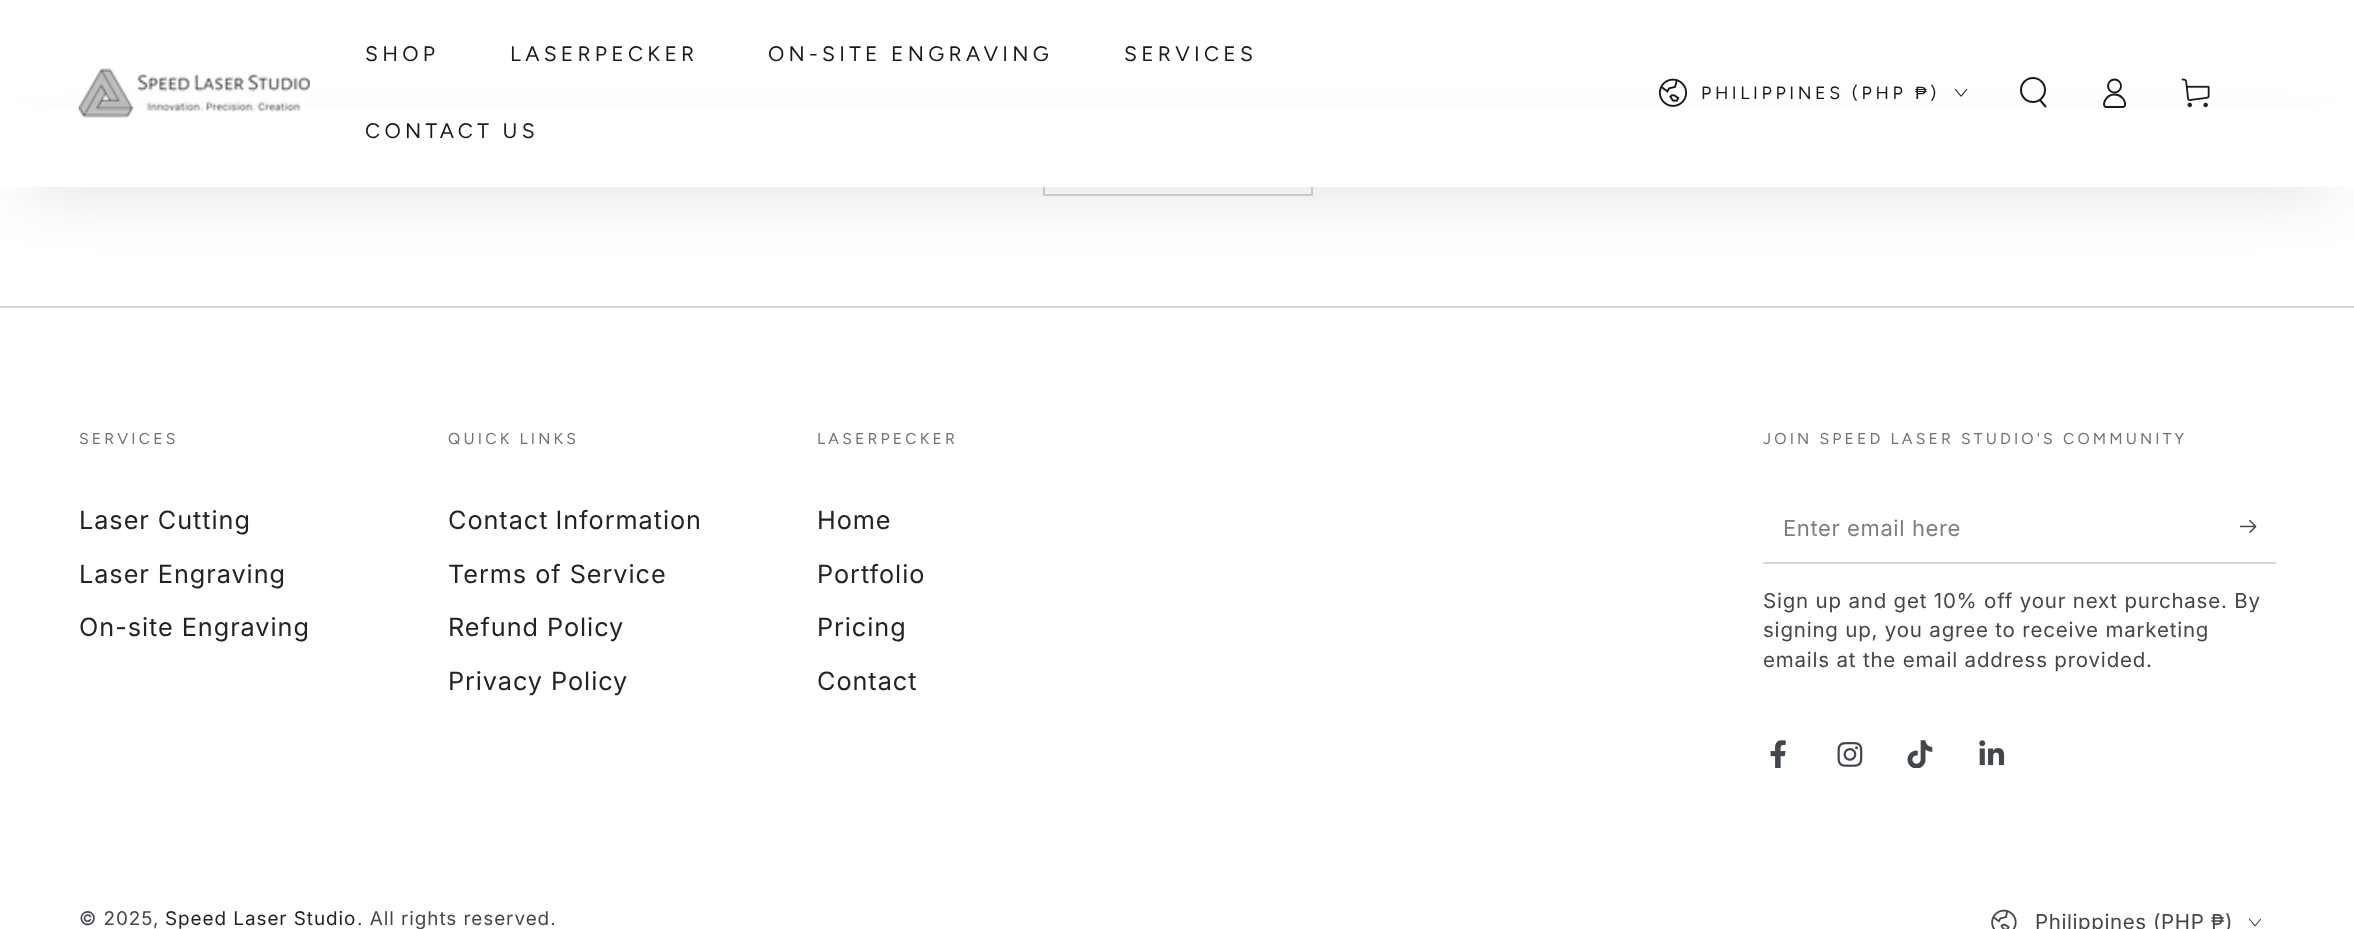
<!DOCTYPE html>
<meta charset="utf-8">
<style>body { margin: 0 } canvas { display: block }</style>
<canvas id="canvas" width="2354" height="929"></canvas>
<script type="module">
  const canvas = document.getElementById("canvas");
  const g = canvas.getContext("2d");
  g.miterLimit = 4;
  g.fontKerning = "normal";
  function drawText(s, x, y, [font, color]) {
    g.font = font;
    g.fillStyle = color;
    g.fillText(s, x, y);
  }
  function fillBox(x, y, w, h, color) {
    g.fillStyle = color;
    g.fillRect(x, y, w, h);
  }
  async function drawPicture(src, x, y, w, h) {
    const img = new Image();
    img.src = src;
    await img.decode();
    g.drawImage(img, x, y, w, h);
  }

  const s1 = ["21px Figtree", "#1A1B18"];
  const s2 = ["17.8px Figtree", "#1A1B18"];
  const s3 = ["17.8px Liberation Sans", "#1A1B18"];
  const s4 = ["15.75px Figtree", "#6B7177"];
  const s5 = ["25.25px Inter", "#212326"];
  const s6 = ["22px Inter", "#7B7E82"];
  const s7 = ["20.5px Inter", "#42474C"];
  const s8 = ["18.9px Inter", "#42474C"];
  const s9 = ["18.9px Inter", "#212326"];

  fillBox(0, 0, 2354, 929, "#FFFFFF");
  g.strokeStyle = "#D2D5D9";
  g.lineWidth = 2;
  g.strokeRect(1044, 134, 268, 61);
  g.fillStyle = "rgba(33, 35, 38, 0.2)";
  g.filter = "blur(31.5px)";
  g.beginPath();
  g.roundRect(25, 156, 2308, 31, 15.5);
  g.fill();
  g.filter = "none";
  g.letterSpacing = "4.25px";
  drawText("SHOP", 365, 61, s1);
  drawText("LASERPECKER", 510, 61, s1);
  drawText("ON-SITE ENGRAVING", 768, 61, s1);
  drawText("SERVICES", 1124, 61, s1);
  fillBox(0, 108, 2354, 79, "#FFFFFF");
  drawText("CONTACT US", 365, 138, s1);
  await drawPicture("pic1.png", 78, 68, 232, 50);
  await drawPicture("pic2.png", 1658, 78, 30, 29);
  g.letterSpacing = "3.6px";
  drawText("PHILIPPINES (PHP", 1701, 99, s2);
  drawText("₱", 1915, 99, s3);
  drawText(")", 1930, 99, s2);
  await drawPicture("pic3.png", 1954, 88, 14, 9);
  g.beginPath();
  g.arc(2033, 90, 12, 0, Math.PI * 2);
  g.strokeStyle = "#1A1B18";
  g.stroke();
  g.beginPath();
  g.moveTo(2040, 100);
  g.lineTo(2045.5, 106.5);
  g.lineCap = "round";
  g.stroke();
  g.beginPath();
  g.moveTo(2114.5, 94.5);
  g.bezierCurveTo(2105, 94.5, 2101, 107, 2106.5, 107);
  g.lineTo(2123.5, 107);
  g.bezierCurveTo(2127, 105.5, 2124, 99, 2122, 97.5);
  g.bezierCurveTo(2120, 95.5, 2117.5, 94.5, 2114.5, 94.5);
  g.closePath();
  g.lineWidth = 1.9;
  g.lineCap = "butt";
  g.stroke();
  g.beginPath();
  g.arc(2114.5, 86, 6.5, 0, Math.PI * 2);
  g.stroke();
  await drawPicture("pic4.png", 2181, 78, 29, 30);
  fillBox(0, 306, 2354, 2, "#D2D5D9");
  g.letterSpacing = "3.15px";
  drawText("SERVICES", 79, 444, s4);
  g.letterSpacing = "0.95px";
  drawText("Laser Cutting", 79, 529, s5);
  drawText("Laser Engraving", 79, 583, s5);
  drawText("On-site Engraving", 79, 636, s5);
  g.letterSpacing = "3.15px";
  drawText("QUICK LINKS", 448, 444, s4);
  g.letterSpacing = "0.95px";
  g.wordSpacing = "-1px";
  drawText("Contact Information", 448, 529, s5);
  g.wordSpacing = "0px";
  drawText("Terms of Service", 448, 583, s5);
  drawText("Refund Policy", 448, 636, s5);
  drawText("Privacy Policy", 448, 690, s5);
  g.letterSpacing = "3.15px";
  drawText("LASERPECKER", 817, 444, s4);
  g.letterSpacing = "0.95px";
  drawText("Home", 817, 529, s5);
  drawText("Portfolio", 817, 583, s5);
  drawText("Pricing", 817, 636, s5);
  drawText("Contact", 817, 690, s5);
  g.letterSpacing = "3.15px";
  drawText("JOIN SPEED LASER STUDIO'S COMMUNITY", 1763, 444, s4);
  g.fillStyle = "#D2D5D9";
  g.beginPath();
  g.moveTo(2277, 564);
  g.lineTo(1762, 564);
  g.lineTo(1764, 562);
  g.lineTo(2275, 562);
  g.closePath();
  g.fill();
  g.letterSpacing = "0.6px";
  drawText("Enter email here", 1783, 536, s6);
  await drawPicture("pic5.png", 2240, 519, 17, 14);
  g.letterSpacing = "0.8px";
  drawText("Sign up and get 10% off your next purchase. By", 1763, 608, s7);
  drawText("signing up, you agree to receive marketing", 1763, 637, s7);
  drawText("emails at the email address provided.", 1763, 667, s7);
  await drawPicture("pic6.png", 1770, 740, 16, 28);
  await drawPicture("pic7.png", 1837, 742, 26, 25);
  await drawPicture("pic8.png", 1907, 740, 26, 28);
  await drawPicture("pic9.png", 1979, 740, 26, 26);
  g.letterSpacing = "0.95px";
  drawText("© 2025,", 79, 925, s8);
  drawText("Speed Laser Studio", 165, 925, s9);
  drawText(". All rights reserved.", 357, 925, s8);
  await drawPicture("pic10.png", 1991, 909, 26, 20);
  g.letterSpacing = "0.6px";
  drawText("Philippines (PHP ₱)", 2035, 929, s7);
  await drawPicture("pic11.png", 2249, 918, 12, 9);
</script>
